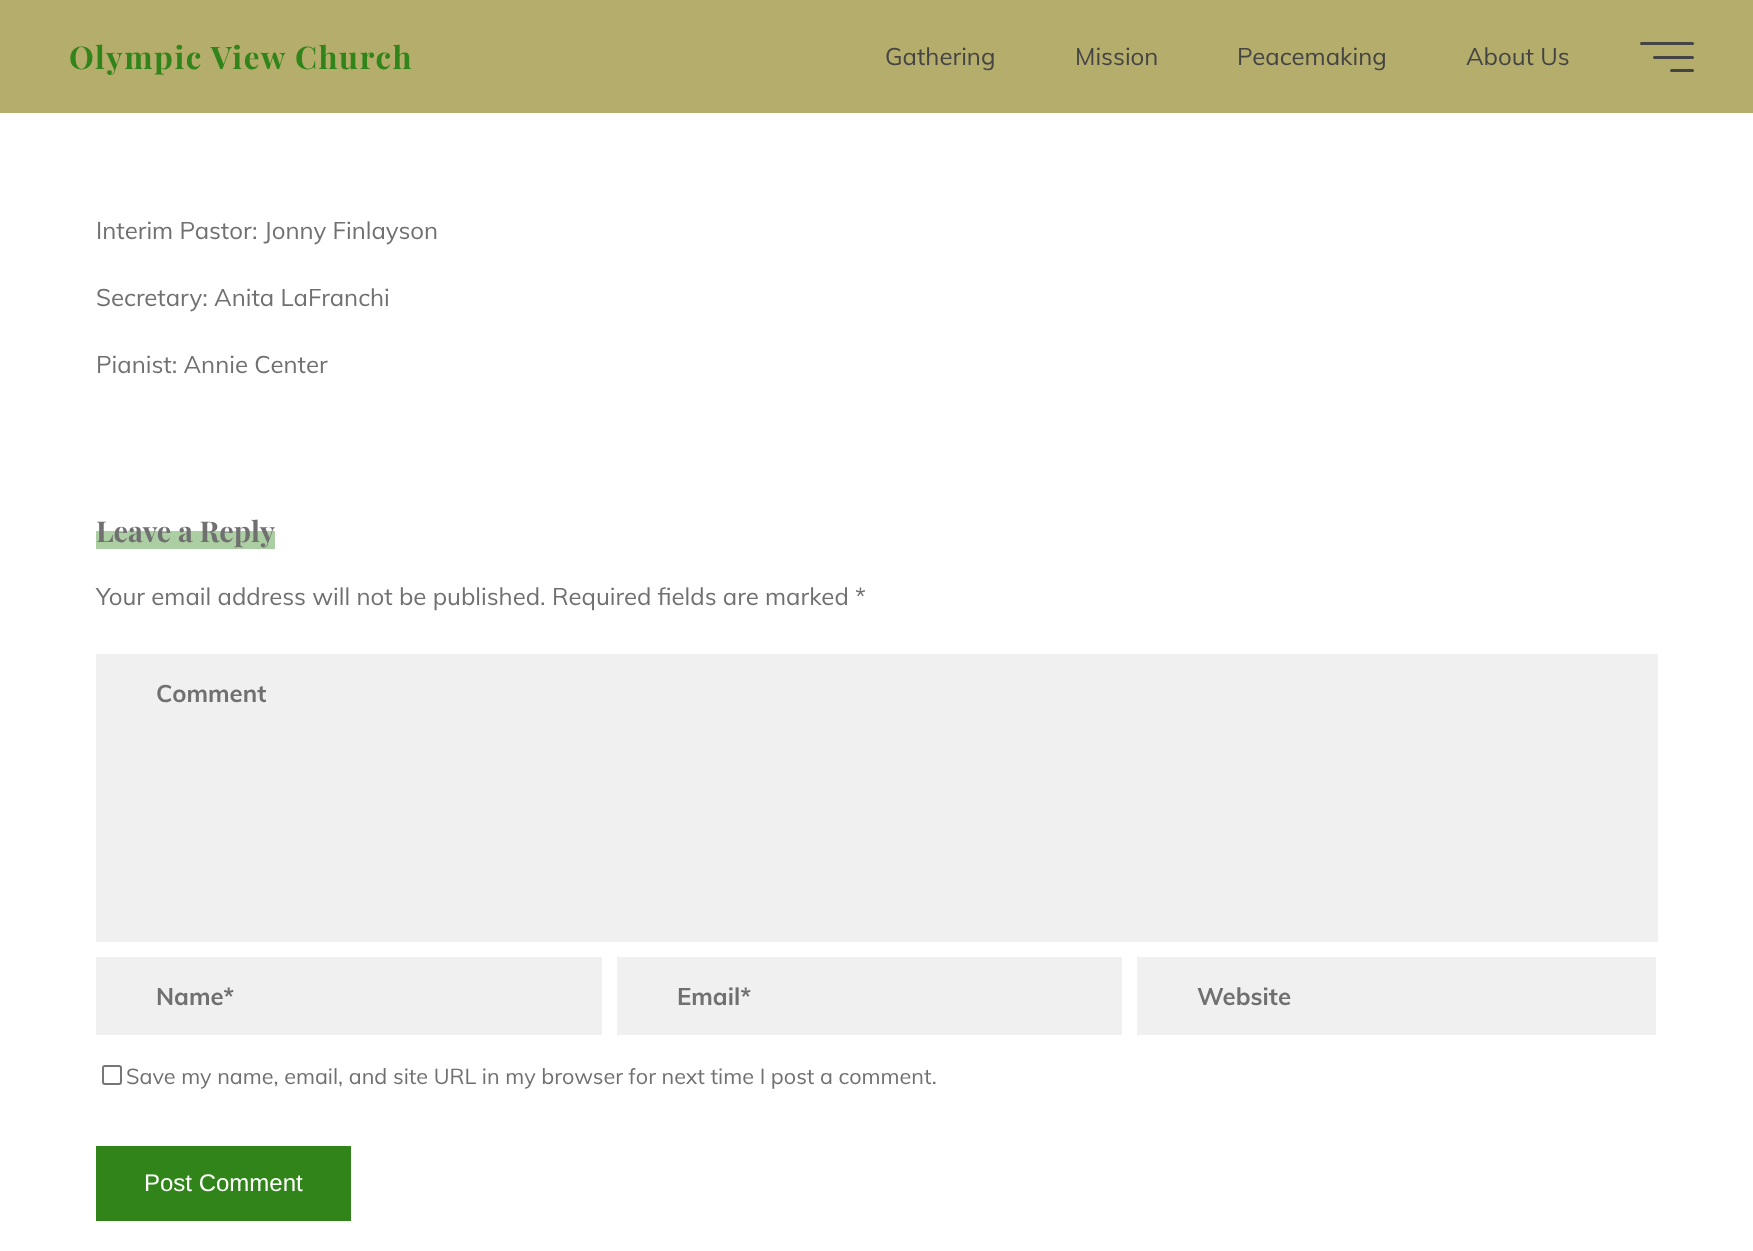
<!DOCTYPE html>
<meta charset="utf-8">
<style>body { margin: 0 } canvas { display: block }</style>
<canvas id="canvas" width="1753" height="1251"></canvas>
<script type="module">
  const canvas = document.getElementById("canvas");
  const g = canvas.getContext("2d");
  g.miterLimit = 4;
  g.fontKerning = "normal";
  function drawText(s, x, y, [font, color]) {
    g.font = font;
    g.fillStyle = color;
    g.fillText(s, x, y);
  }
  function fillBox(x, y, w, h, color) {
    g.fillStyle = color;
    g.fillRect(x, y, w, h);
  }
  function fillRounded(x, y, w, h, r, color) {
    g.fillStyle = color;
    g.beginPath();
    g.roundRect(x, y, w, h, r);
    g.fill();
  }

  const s1 = ["bold 31.25px Playfair Display", "#308419"];
  const s2 = ["24px Muli", "#444444"];
  const s3 = ["24px Muli", "#707070"];
  const s4 = ["bold 28.75px Playfair Display", "#707070"];
  const s5 = ["bold 24px Muli", "#707070"];
  const s6 = ["21.6px Muli", "#707070"];
  const s7 = ["24px Liberation Sans", "#FFFFFF"];

  fillBox(0, 0, 1753, 1251, "#FFFFFF");
  fillBox(0, 0, 1753, 113, "#B5AD6C");
  g.letterSpacing = "1.6px";
  drawText("Olympic View Church", 69, 69, s1);
  g.letterSpacing = "0px";
  drawText("Gathering", 885, 65, s2);
  drawText("Mission", 1075, 65, s2);
  drawText("Peacemaking", 1237, 65, s2);
  drawText("About Us", 1466, 65, s2);
  fillRounded(1640, 42, 54, 3, 1.5, "#444444");
  fillRounded(1653, 56, 41, 3, 1.5, "#444444");
  fillRounded(1670, 69, 24, 3, 1.5, "#444444");
  drawText("Interim Pastor: Jonny Finlayson", 96, 239, s3);
  drawText("Secretary: Anita LaFranchi", 96, 306, s3);
  drawText("Pianist: Annie Center", 96, 373, s3);
  fillBox(96, 531, 179, 18, "#ACCEA3");
  drawText("Leave a Reply", 96, 542, s4);
  drawText("Your email address will not be published. Required fields are marked *", 96, 605, s3);
  fillBox(96, 654, 1562, 288, "#F0F0F0");
  drawText("Comment", 156, 702, s5);
  fillBox(96, 957, 506, 78, "#F0F0F0");
  drawText("Name*", 156, 1005, s5);
  fillBox(617, 957, 505, 78, "#F0F0F0");
  drawText("Email*", 677, 1005, s5);
  fillBox(1137, 957, 519, 78, "#F0F0F0");
  drawText("Website", 1197, 1005, s5);
  g.beginPath();
  g.roundRect(103, 1066, 18, 18, 2);
  g.strokeStyle = "#767676";
  g.lineWidth = 2;
  g.stroke();
  drawText("Save my name, email, and site URL in my browser for next time I post a comment.", 126, 1084, s6);
  fillBox(96, 1146, 255, 75, "#308419");
  drawText("Post Comment", 144, 1191, s7);
</script>
